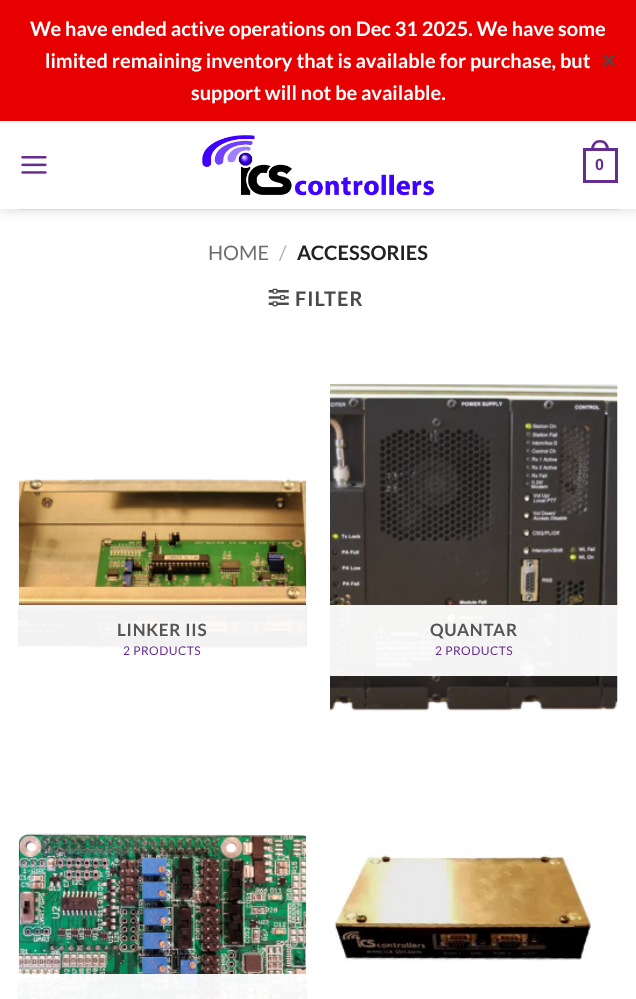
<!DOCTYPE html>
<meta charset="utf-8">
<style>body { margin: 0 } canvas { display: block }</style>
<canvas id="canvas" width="636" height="999"></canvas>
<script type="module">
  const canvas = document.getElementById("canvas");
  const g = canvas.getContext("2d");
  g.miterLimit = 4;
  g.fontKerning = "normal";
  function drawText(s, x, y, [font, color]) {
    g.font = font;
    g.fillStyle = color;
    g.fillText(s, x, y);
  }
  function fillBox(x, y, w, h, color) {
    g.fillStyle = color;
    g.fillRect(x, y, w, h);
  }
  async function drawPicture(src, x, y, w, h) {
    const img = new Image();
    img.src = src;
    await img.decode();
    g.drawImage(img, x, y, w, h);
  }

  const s1 = ["bold 20px Lato", "#FFFFFF"];
  const s2 = ["bold 20px DejaVu Sans", "#4A4A4A"];
  const s3 = ["bold 16px Liberation Sans", "#662D91"];
  const s4 = ["20px Lato", "#6E6E6E"];
  const s5 = ["20px Lato", "#B2B2B2"];
  const s6 = ["bold 20px Lato", "#222222"];
  const s7 = ["bold 20px Lato", "#4A4A4A"];
  const s8 = ["bold 17px Lato", "#555555"];
  const s9 = ["12px Lato", "#662D91"];

  fillBox(0, 0, 636, 999, "#FFFFFF");
  g.save();
  g.beginPath();
  g.moveTo(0, 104);
  g.lineTo(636, 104);
  g.lineTo(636, 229);
  g.lineTo(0, 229);
  g.closePath();
  g.moveTo(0, 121);
  g.lineTo(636, 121);
  g.lineTo(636, 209);
  g.lineTo(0, 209);
  g.closePath();
  g.clip("evenodd");
  g.fillStyle = "rgba(0, 0, 0, 0.15)";
  g.filter = "blur(6px)";
  g.beginPath();
  g.rect(1, 123, 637, 87);
  g.fill();
  g.filter = "none";
  g.restore();
  fillBox(0, 0, 636, 121, "#E60000");
  drawText("We have ended active operations on Dec 31 2025. We have some", 30, 36, s1);
  drawText("limited remaining inventory that is available for purchase, but", 45, 68, s1);
  drawText("support will not be available.", 191, 100, s1);
  g.letterSpacing = "1px";
  drawText("✕", 600, 68, s2);
  fillBox(1, 121, 635, 88, "rgba(255, 255, 255, 0.9)");
  await drawPicture("pic1.png", 21, 156, 26, 18);
  await drawPicture("pic2.png", 202, 135, 233, 61);
  g.strokeStyle = "#662D91";
  g.lineWidth = 3;
  g.strokeRect(584.5, 149.5, 32, 32);
  g.fillStyle = "#662D91";
  g.beginPath();
  g.moveTo(600, 140);
  g.bezierCurveTo(606, 140, 609, 144.5, 609, 150);
  g.lineTo(591, 150);
  g.bezierCurveTo(591, 144.5, 594, 140, 600, 140);
  g.closePath();
  g.moveTo(600, 142.5);
  g.bezierCurveTo(604.5, 142.5, 606, 146, 606, 150);
  g.lineTo(594, 150);
  g.bezierCurveTo(594, 146, 595.5, 142.5, 600, 142.5);
  g.closePath();
  g.fill("evenodd");
  g.letterSpacing = "0px";
  drawText("0", 595, 170, s3);
  fillBox(19, 209, 599, 1, "#DBDBDB");
  drawText("HOME", 208, 260, s4);
  drawText("/", 279, 260, s5);
  drawText("ACCESSORIES", 297, 260, s6);
  await drawPicture("pic3.png", 268, 288, 21, 19);
  g.letterSpacing = "1px";
  drawText("FILTER", 295, 306, s7);
  await drawPicture("pic4.png", 18, 478, 289, 171);
  fillBox(19, 605, 287, 44, "rgba(255, 255, 255, 0.95)");
  g.letterSpacing = "0.75px";
  drawText("LINKER IIS", 117, 636, s8);
  g.letterSpacing = "0.5px";
  drawText("2 PRODUCTS", 123, 655, s9);
  await drawPicture("pic5.png", 330, 383, 288, 328);
  fillBox(330, 605, 288, 71, "rgba(255, 255, 255, 0.95)");
  g.letterSpacing = "0.75px";
  drawText("QUANTAR", 430, 636, s8);
  g.letterSpacing = "0.5px";
  drawText("2 PRODUCTS", 435, 655, s9);
  await drawPicture("pic6.png", 18, 833, 289, 166);
  fillBox(19, 974, 287, 25, "rgba(255, 255, 255, 0.95)");
  await drawPicture("pic7.png", 330, 854, 262, 108);
</script>
